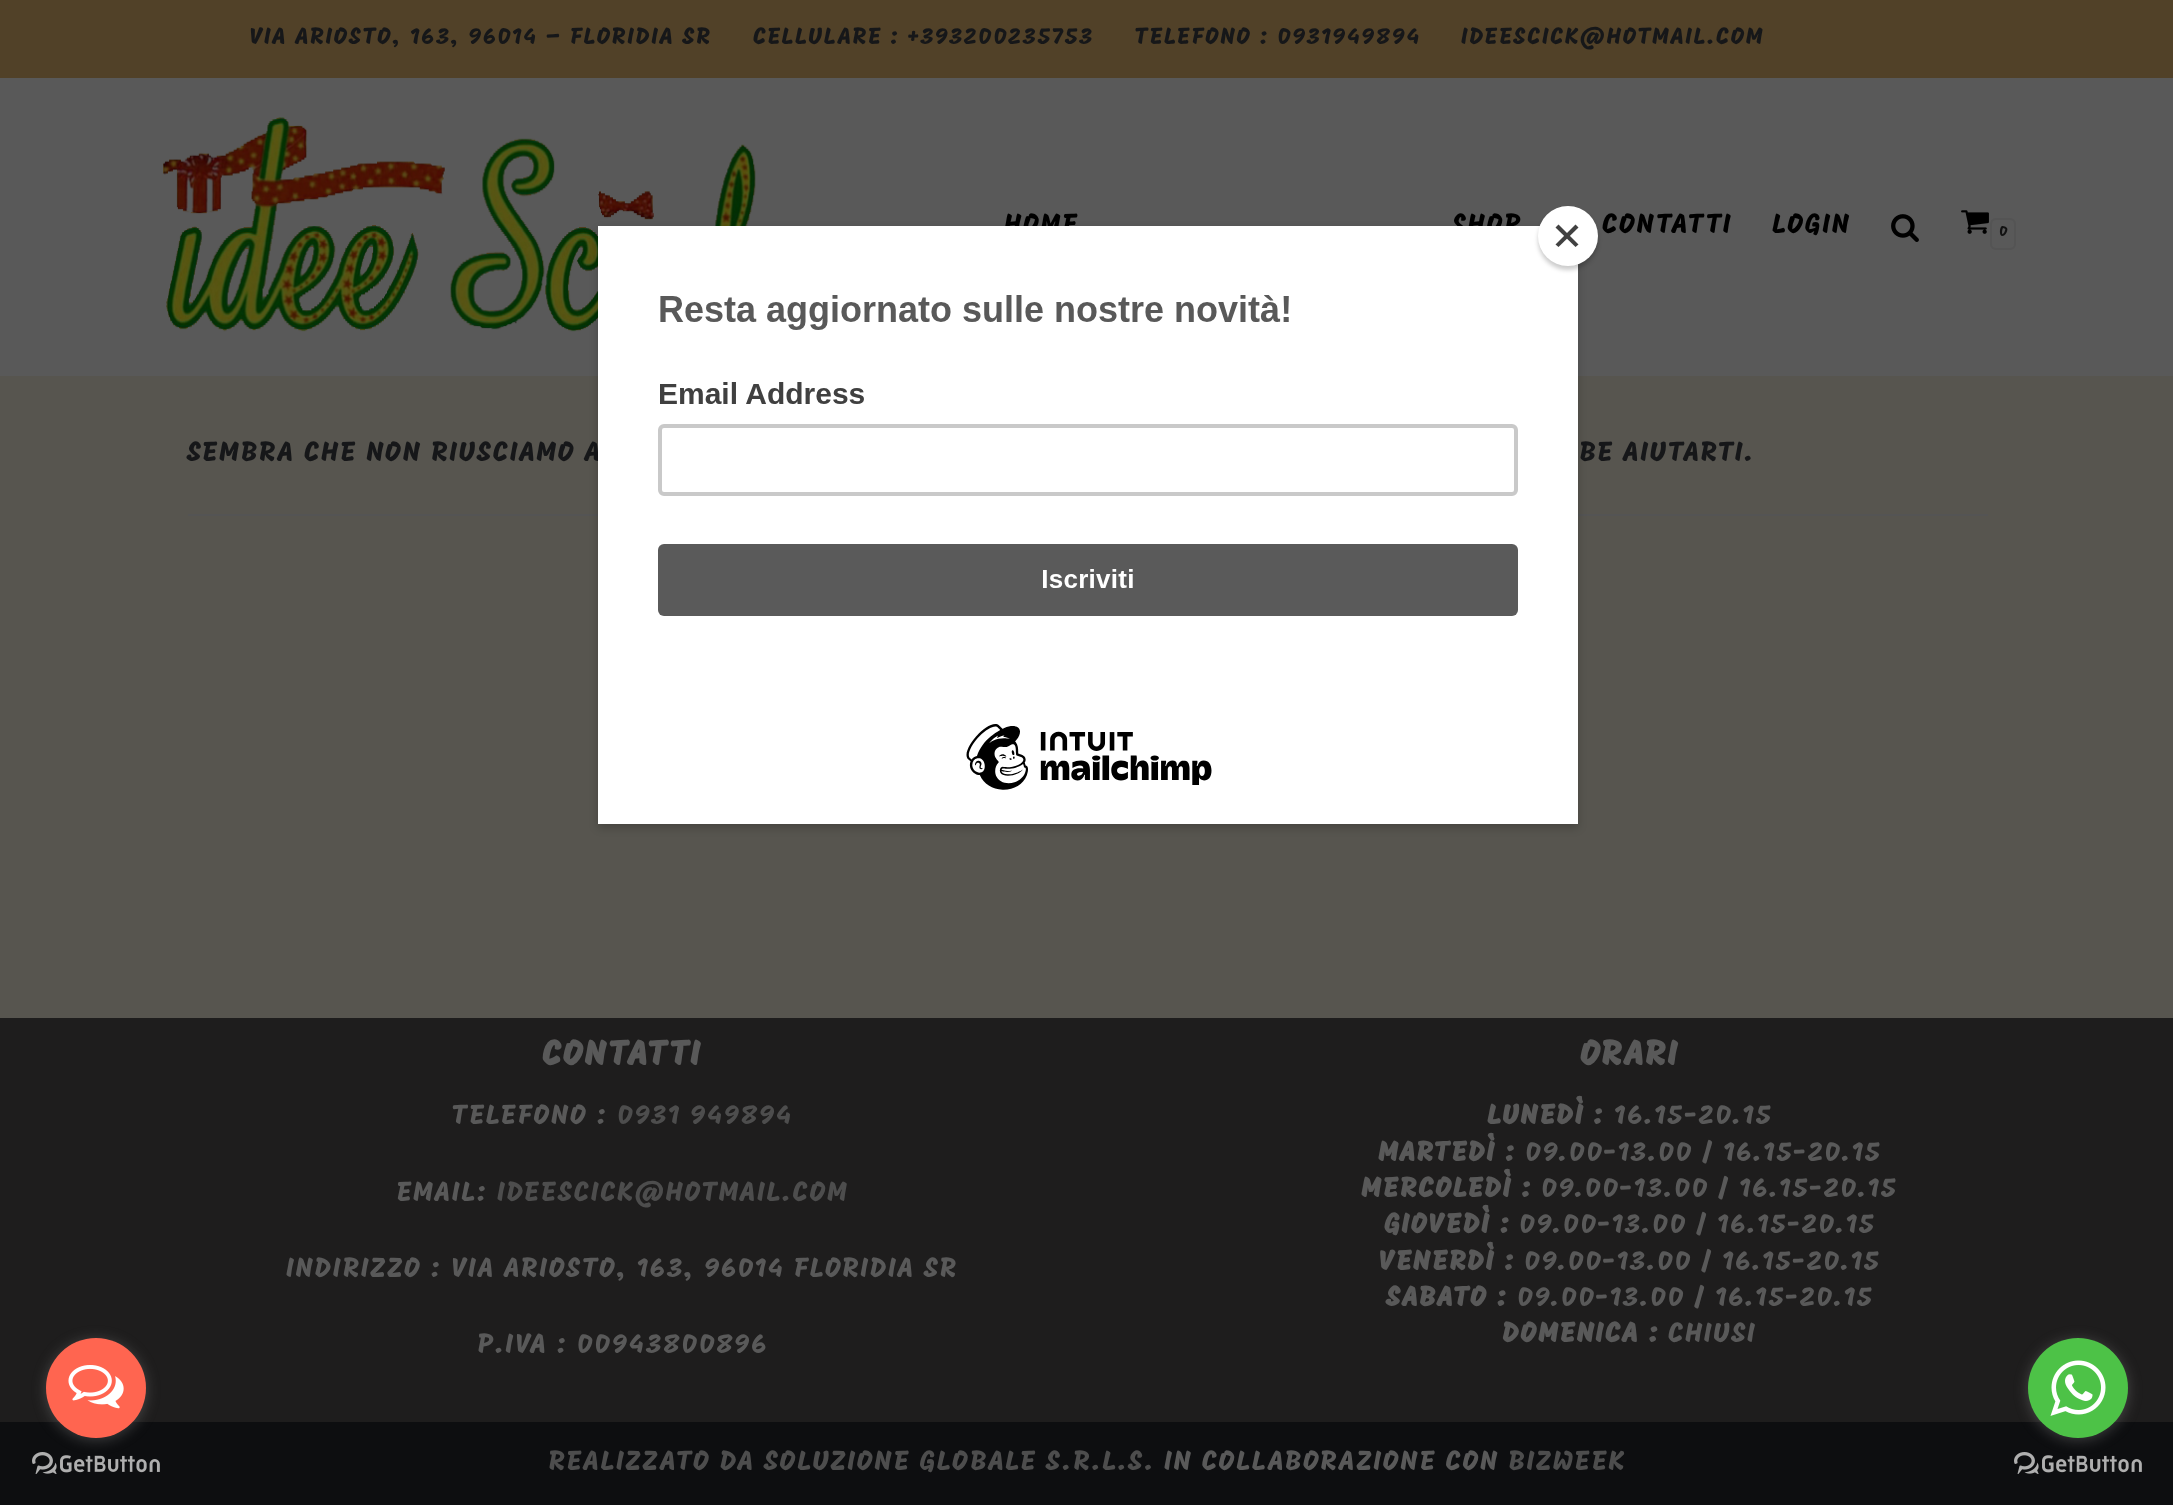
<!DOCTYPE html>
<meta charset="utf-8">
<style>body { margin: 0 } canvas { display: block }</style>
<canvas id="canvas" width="2173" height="1505"></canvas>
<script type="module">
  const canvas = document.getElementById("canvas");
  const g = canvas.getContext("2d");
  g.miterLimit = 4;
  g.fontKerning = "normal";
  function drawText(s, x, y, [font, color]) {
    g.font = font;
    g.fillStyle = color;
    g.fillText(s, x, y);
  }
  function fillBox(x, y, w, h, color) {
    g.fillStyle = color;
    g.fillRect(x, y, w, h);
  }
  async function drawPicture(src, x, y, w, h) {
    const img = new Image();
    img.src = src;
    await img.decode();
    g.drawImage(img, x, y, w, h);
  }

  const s1 = ["23.75px Mogra", "#161719"];
  const s2 = ["28px Mogra", "#000000"];
  const s3 = ["15px Mogra", "#121212"];
  const s4 = ["28px Mogra", "#161719"];
  const s5 = ["bold 35px Mogra", "#595959"];
  const s6 = ["28px Mogra", "#595959"];
  const s7 = ["28px Mogra", "#4D4D4D"];
  const s8 = ["bold 28px Mogra", "#595959"];

  fillBox(0, 0, 2173, 1505, "#57554F");
  fillBox(0, 0, 2173, 78, "#514128");
  g.letterSpacing = "1.6px";
  drawText("VIA ARIOSTO, 163, 96014 – FLORIDIA SR", 249, 44, s1);
  drawText("CELLULARE : +393200235753", 753, 44, s1);
  drawText("TELEFONO : 0931949894", 1134, 44, s1);
  drawText("IDEESCICK@HOTMAIL.COM", 1461, 44, s1);
  fillBox(0, 78, 2173, 298, "#595959");
  await drawPicture("pic1.png", 163, 117, 593, 215);
  drawText("HOME", 1004, 233, s2);
  drawText("SHOP", 1452, 233, s2);
  drawText("CONTATTI", 1602, 233, s2);
  drawText("LOGIN", 1772, 233, s2);
  await drawPicture("pic2.png", 1891, 214, 28, 28);
  await drawPicture("pic3.png", 1961, 210, 28, 24);
  g.beginPath();
  g.roundRect(1991, 219, 24, 30, 5);
  g.strokeStyle = "#545454";
  g.lineWidth = 2;
  g.stroke();
  drawText("0", 1999, 236, s3);
  drawText("SEMBRA CHE NON RIUSCIAMO A", 187, 461, s4);
  drawText("BE AIUTARTI.", 1579, 461, s4);
  fillBox(188, 514, 1800, 2, "#545454");
  fillBox(0, 1018, 2173, 404, "#1E1D1D");
  drawText("CONTATTI", 542, 1065, s5);
  drawText("TELEFONO :", 451, 1124, s6);
  drawText("0931 949894", 617, 1124, s7);
  drawText("EMAIL:", 396, 1201, s6);
  drawText("IDEESCICK@HOTMAIL.COM", 497, 1201, s7);
  drawText("INDIRIZZO : VIA ARIOSTO, 163, 96014 FLORIDIA SR", 286, 1277, s6);
  drawText("P.IVA : 00943800896", 477, 1353, s6);
  drawText("ORARI", 1580, 1065, s5);
  drawText("LUNEDÌ :", 1487, 1124, s8);
  drawText("16.15-20.15", 1614, 1124, s6);
  drawText("MARTEDÌ :", 1378, 1161, s8);
  drawText("09.00-13.00 / 16.15-20.15", 1525, 1161, s6);
  drawText("MERCOLEDÌ :", 1361, 1197, s8);
  drawText("09.00-13.00 / 16.15-20.15", 1541, 1197, s6);
  drawText("GIOVEDÌ :", 1384, 1233, s8);
  drawText("09.00-13.00 / 16.15-20.15", 1519, 1233, s6);
  drawText("VENERDÌ :", 1378, 1270, s8);
  drawText("09.00-13.00 / 16.15-20.15", 1524, 1270, s6);
  drawText("SABATO :", 1386, 1306, s8);
  drawText("09.00-13.00 / 16.15-20.15", 1517, 1306, s6);
  drawText("DOMENICA :", 1502, 1342, s8);
  drawText("CHIUSI", 1668, 1342, s6);
  fillBox(0, 1422, 2173, 83, "#0D0E10");
  drawText("REALIZZATO DA SOLUZIONE GLOBALE S.R.L.S.", 548, 1470, s7);
  drawText("IN COLLABORAZIONE CON", 1164, 1470, s6);
  drawText("BIZWEEK", 1508, 1470, s7);
  g.fillStyle = "rgba(0, 0, 0, 0.2)";
  g.filter = "blur(4px)";
  g.beginPath();
  g.rect(598, 230, 980, 598);
  g.fill();
  g.filter = "none";
  await drawPicture("pic4.png", 598, 226, 980, 598);
  g.filter = "blur(2px)";
  g.beginPath();
  g.roundRect(1538, 210, 60, 60, 30);
  g.fill();
  g.filter = "none";
  g.fillStyle = "#FFFFFF";
  g.beginPath();
  g.arc(1568, 236, 30, 0, Math.PI * 2);
  g.fill();
  g.fillStyle = "#414141";
  g.beginPath();
  g.moveTo(1575.5, 224.5);
  g.lineTo(1578.5, 227.5);
  g.lineTo(1558.5, 247);
  g.lineTo(1555.5, 244.5);
  g.closePath();
  g.fill();
  g.beginPath();
  g.moveTo(1555.5, 227.5);
  g.lineTo(1558.5, 224.5);
  g.lineTo(1578.5, 244.5);
  g.lineTo(1575.5, 247);
  g.closePath();
  g.fill();
  await drawPicture("pic6.png", 32, 1452, 128, 22);
  g.fillStyle = "rgba(136, 136, 136, 0.4)";
  g.filter = "blur(7px)";
  g.beginPath();
  g.roundRect(46, 1340, 100, 100, 50);
  g.fill();
  g.filter = "none";
  g.fillStyle = "#FF6550";
  g.beginPath();
  g.arc(96, 1388, 50, 0, Math.PI * 2);
  g.fill();
  await drawPicture("pic5.png", 68, 1365, 56, 44);
  await drawPicture("pic6.png", 2014, 1452, 128, 22);
  g.fillStyle = "rgba(136, 136, 136, 0.4)";
  g.filter = "blur(7px)";
  g.beginPath();
  g.roundRect(2028, 1340, 100, 100, 50);
  g.fill();
  g.filter = "none";
  g.fillStyle = "#4DC247";
  g.beginPath();
  g.arc(2078, 1388, 50, 0, Math.PI * 2);
  g.fill();
  await drawPicture("pic7.png", 2050, 1360, 56, 56);
</script>
